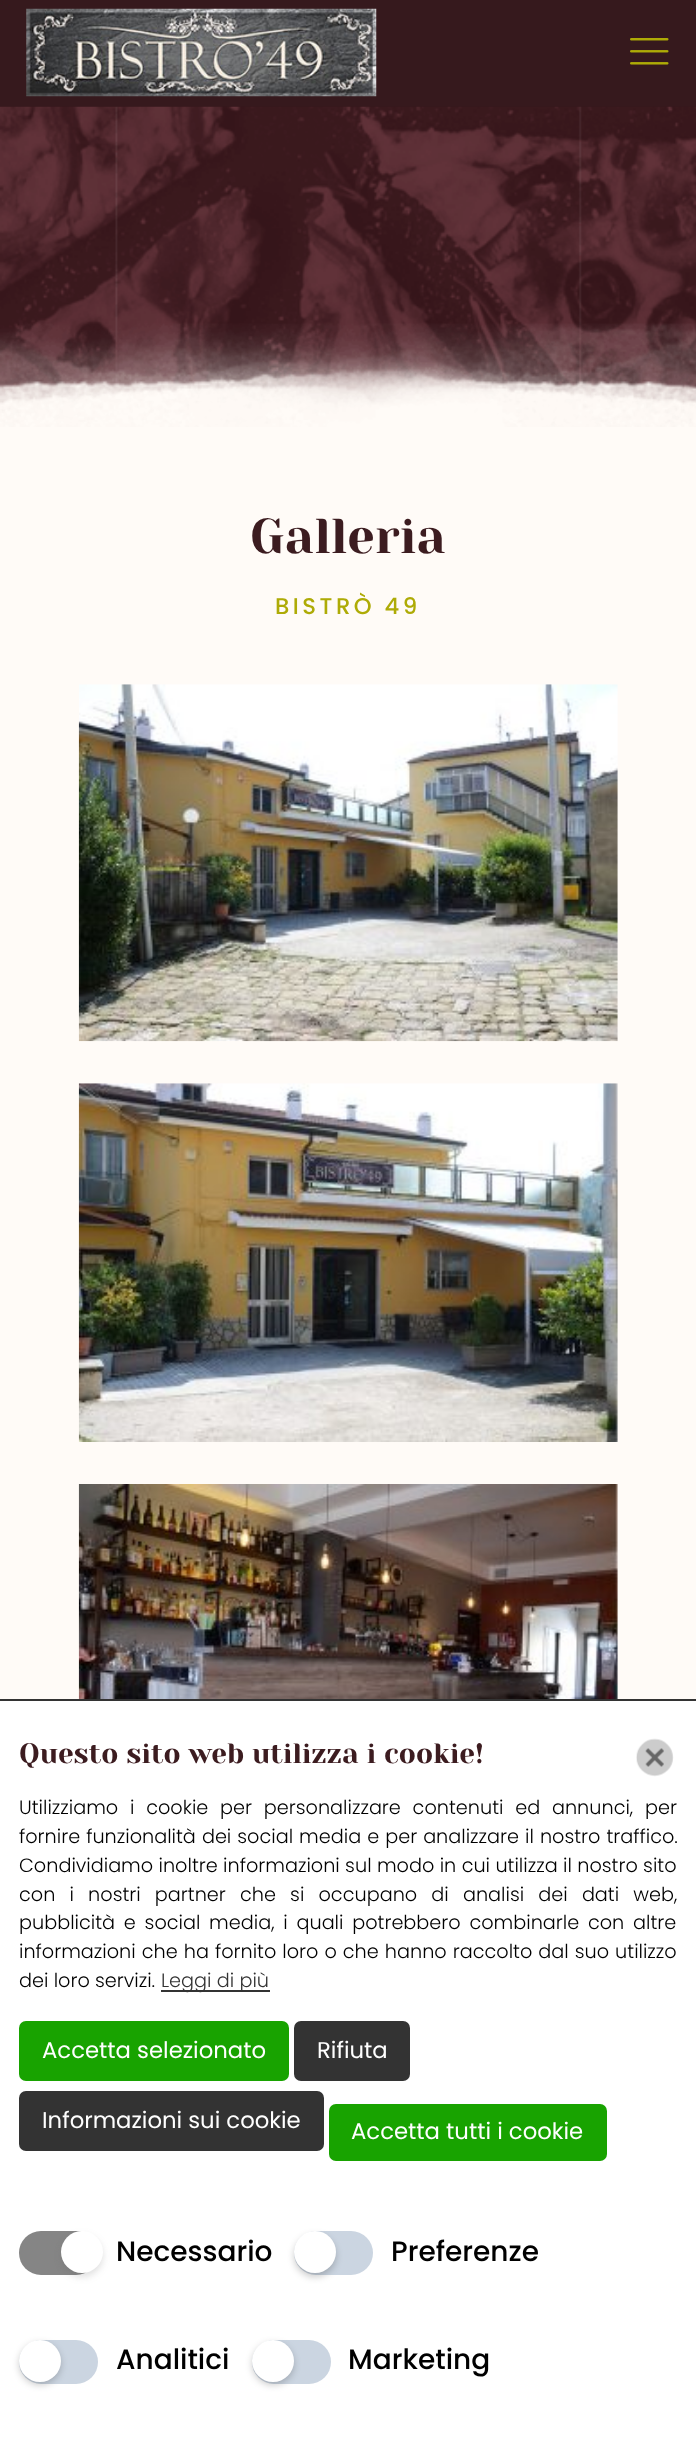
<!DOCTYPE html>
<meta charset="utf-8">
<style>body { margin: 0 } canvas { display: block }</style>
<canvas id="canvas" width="696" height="2451"></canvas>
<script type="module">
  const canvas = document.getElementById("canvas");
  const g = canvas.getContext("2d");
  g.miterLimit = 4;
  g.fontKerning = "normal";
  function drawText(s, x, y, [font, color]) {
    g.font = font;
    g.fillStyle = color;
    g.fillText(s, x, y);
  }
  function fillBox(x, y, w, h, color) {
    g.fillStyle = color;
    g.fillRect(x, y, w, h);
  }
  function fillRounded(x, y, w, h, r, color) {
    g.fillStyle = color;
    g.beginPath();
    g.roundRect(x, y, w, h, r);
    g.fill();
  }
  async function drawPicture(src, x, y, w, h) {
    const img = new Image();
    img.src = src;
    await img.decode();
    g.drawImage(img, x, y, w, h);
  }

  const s1 = ["49px Yeseva One", "#3C1C20"];
  const s2 = ["500 22.75px Poppins", "#AEAB06"];
  const s3 = ["28px Yeseva One", "#3C1C20"];
  const s4 = ["300 19.25px Poppins", "#000000"];
  const s5 = ["300 19.25px Poppins", "#333333"];
  const s6 = ["22.75px Poppins", "#FFFFFF"];
  const s7 = ["500 28px Poppins", "#000000"];

  fillBox(0, 0, 696, 2451, "#FFFBF7");
  fillBox(0, 0, 696, 107, "#36191D");
  await drawPicture("pic1.png", 26, 8, 351, 89);
  await drawPicture("pic2.png", 630, 38, 39, 27);
  await drawPicture("pic3.png", 0, 106, 696, 321);
  drawText("Galleria", 250, 553, s1);
  g.letterSpacing = "3.5px";
  drawText("BISTRÒ 49", 275, 614, s2);
  await drawPicture("pic4.png", 78, 684, 540, 358);
  await drawPicture("pic5.png", 78, 1083, 540, 359);
  await drawPicture("pic6.png", 78, 1484, 540, 215);
  fillBox(0, 1701, 696, 750, "#FFFFFF");
  fillBox(0, 1699, 696, 2, "#333333");
  g.letterSpacing = "0px";
  drawText("Questo sito web utilizza i cookie!", 19, 1763, s3);
  await drawPicture("pic7.png", 636, 1738, 38, 39);
  g.wordSpacing = "6.5px";
  drawText("Utilizziamo i cookie per personalizzare contenuti ed annunci, per", 19, 1814, s4);
  g.wordSpacing = "0.75px";
  drawText("fornire funzionalità dei social media e per analizzare il nostro traffico.", 19, 1843, s4);
  g.wordSpacing = "0.1px";
  drawText("Condividiamo inoltre informazioni sul modo in cui utilizza il nostro sito", 19, 1872, s4);
  g.wordSpacing = "8.9px";
  drawText("con i nostri partner che si occupano di analisi dei dati web,", 19, 1901, s4);
  g.wordSpacing = "3.5px";
  drawText("pubblicità e social media, i quali potrebbero combinarle con altre", 19, 1929, s4);
  g.wordSpacing = "0.75px";
  drawText("informazioni che ha fornito loro o che hanno raccolto dal suo utilizzo", 19, 1958, s4);
  g.wordSpacing = "0px";
  drawText("dei loro servizi.", 19, 1987, s4);
  fillBox(161, 1990, 109, 2, "#333333");
  drawText("Leggi di più", 161, 1987, s5);
  fillRounded(19, 2021, 270, 60, 7, "#18A300");
  drawText("Accetta selezionato", 42, 2058, s6);
  fillRounded(294, 2021, 116, 60, 7, "#333333");
  drawText("Rifiuta", 317, 2058, s6);
  fillRounded(19, 2091, 305, 60, 7, "#333333");
  drawText("Informazioni sui cookie", 42, 2128, s6);
  fillRounded(329, 2104, 278, 57, 7, "#18A300");
  drawText("Accetta tutti i cookie", 351, 2139, s6);
  fillRounded(19, 2231, 79, 44, 22, "#858585");
  g.fillStyle = "rgba(102, 102, 102, 0.2)";
  g.filter = "blur(3.5px)";
  g.beginPath();
  g.roundRect(61, 2235, 42, 42, 21);
  g.fill();
  g.filter = "none";
  g.fillStyle = "#FFFFFF";
  g.beginPath();
  g.arc(82, 2252, 21, 0, Math.PI * 2);
  g.fill();
  drawText("Necessario", 116, 2261, s7);
  fillRounded(294, 2231, 79, 44, 22, "#CBD5E1");
  g.fillStyle = "rgba(0, 0, 0, 0.2)";
  g.filter = "blur(3.5px)";
  g.beginPath();
  g.roundRect(294, 2235, 42, 42, 21);
  g.fill();
  g.filter = "none";
  g.fillStyle = "#FFFFFF";
  g.beginPath();
  g.arc(315, 2252, 21, 0, Math.PI * 2);
  g.fill();
  drawText("Preferenze", 391, 2261, s7);
  fillRounded(19, 2340, 79, 44, 22, "#CBD5E1");
  g.fillStyle = "rgba(0, 0, 0, 0.2)";
  g.filter = "blur(3.5px)";
  g.beginPath();
  g.roundRect(19, 2343, 42, 42, 21);
  g.fill();
  g.filter = "none";
  g.fillStyle = "#FFFFFF";
  g.beginPath();
  g.arc(40, 2361, 21, 0, Math.PI * 2);
  g.fill();
  drawText("Analitici", 116, 2369, s7);
  fillRounded(252, 2340, 79, 44, 22, "#CBD5E1");
  g.fillStyle = "rgba(0, 0, 0, 0.2)";
  g.filter = "blur(3.5px)";
  g.beginPath();
  g.roundRect(252, 2343, 42, 42, 21);
  g.fill();
  g.filter = "none";
  g.fillStyle = "#FFFFFF";
  g.beginPath();
  g.arc(273, 2361, 21, 0, Math.PI * 2);
  g.fill();
  drawText("Marketing", 348, 2369, s7);
</script>
